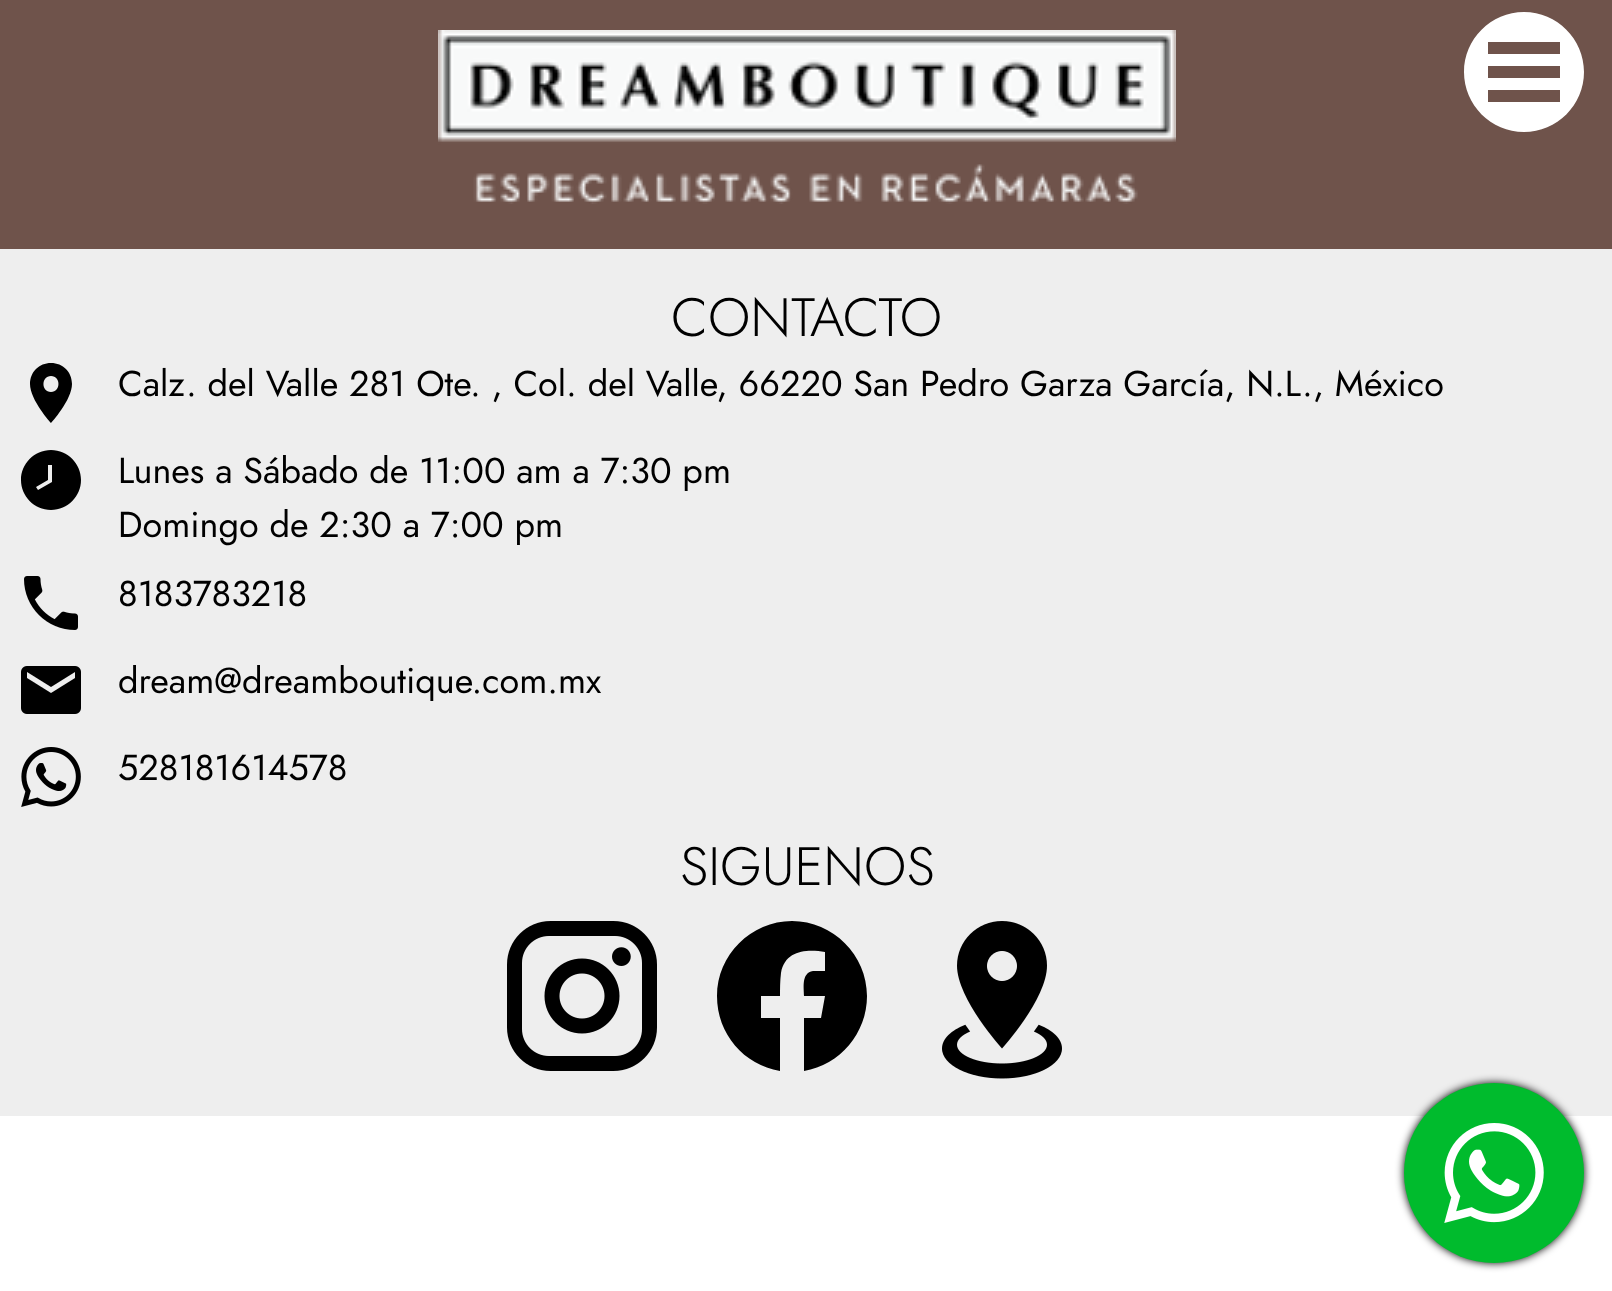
<!DOCTYPE html>
<meta charset="utf-8">
<style>body { margin: 0 } canvas { display: block }</style>
<canvas id="canvas" width="1612" height="1291"></canvas>
<script type="module">
  const canvas = document.getElementById("canvas");
  const g = canvas.getContext("2d");
  g.miterLimit = 4;
  g.fontKerning = "normal";
  function drawText(s, x, y, [font, color]) {
    g.font = font;
    g.fillStyle = color;
    g.fillText(s, x, y);
  }
  function fillBox(x, y, w, h, color) {
    g.fillStyle = color;
    g.fillRect(x, y, w, h);
  }
  async function drawPicture(src, x, y, w, h) {
    const img = new Image();
    img.src = src;
    await img.decode();
    g.drawImage(img, x, y, w, h);
  }

  const s1 = ["300 54px Jost", "#000000"];
  const s2 = ["36px Jost", "#000000"];

  fillBox(0, 0, 1612, 1291, "#FFFFFF");
  fillBox(0, 0, 1612, 249, "#6F534B");
  g.fillStyle = "#FFFFFF";
  g.beginPath();
  g.moveTo(1524, 12);
  g.bezierCurveTo(1491, 12, 1464, 39, 1464, 72);
  g.bezierCurveTo(1464, 105, 1491, 132, 1524, 132);
  g.bezierCurveTo(1557, 132, 1584, 105, 1584, 72);
  g.bezierCurveTo(1584, 39, 1557, 12, 1524, 12);
  g.moveTo(1488, 42);
  g.lineTo(1560, 42);
  g.lineTo(1560, 54);
  g.lineTo(1488, 54);
  g.lineTo(1488, 42);
  g.moveTo(1488, 66);
  g.lineTo(1560, 66);
  g.lineTo(1560, 78);
  g.lineTo(1488, 78);
  g.lineTo(1488, 66);
  g.moveTo(1488, 90);
  g.lineTo(1560, 90);
  g.lineTo(1560, 102);
  g.lineTo(1488, 102);
  g.closePath();
  g.fill();
  await drawPicture("pic1.png", 438, 30, 738, 174);
  fillBox(0, 249, 1612, 867, "#EEEEEE");
  drawText("CONTACTO", 671, 336, s1);
  g.beginPath();
  g.moveTo(51, 392);
  g.bezierCurveTo(41, 392, 41, 376, 51, 376);
  g.bezierCurveTo(61, 376, 61, 392, 51, 392);
  g.moveTo(51, 363);
  g.bezierCurveTo(39, 363, 30, 372, 30, 384);
  g.bezierCurveTo(30, 400, 51, 423, 51, 423);
  g.bezierCurveTo(51, 423, 72, 400, 72, 384);
  g.bezierCurveTo(72, 372, 63, 363, 51, 363);
  g.closePath();
  g.fill();
  drawText("Calz. del Valle 281 Ote. , Col. del Valle, 66220 San Pedro Garza García, N.L., México", 118, 396, s2);
  g.beginPath();
  g.moveTo(51, 450);
  g.bezierCurveTo(34, 450, 21, 464, 21, 480);
  g.bezierCurveTo(21, 496, 34, 510, 51, 510);
  g.bezierCurveTo(68, 510, 81, 496, 81, 480);
  g.bezierCurveTo(81, 464, 68, 450, 51, 450);
  g.moveTo(38, 490);
  g.lineTo(36, 487);
  g.lineTo(48, 480);
  g.lineTo(48, 465);
  g.lineTo(52, 465);
  g.lineTo(52, 482);
  g.closePath();
  g.fill();
  drawText("Lunes a Sábado de 11:00 am a 7:30 pm", 118, 483, s2);
  drawText("Domingo de 2:30 a 7:00 pm", 118, 537, s2);
  await drawPicture("pic2.png", 24, 576, 54, 54);
  drawText("8183783218", 118, 606, s2);
  await drawPicture("pic3.png", 21, 666, 60, 48);
  drawText("dream@dreamboutique.com.mx", 118, 693, s2);
  await drawPicture("pic4.png", 21, 747, 60, 60);
  drawText("528181614578", 118, 780, s2);
  drawText("SIGUENOS", 680, 885, s1);
  await drawPicture("pic5.png", 507, 921, 150, 150);
  g.beginPath();
  g.moveTo(792, 921);
  g.bezierCurveTo(751, 921, 717, 955, 717, 996);
  g.bezierCurveTo(717, 1034, 744, 1065, 780, 1071);
  g.lineTo(780, 1018);
  g.lineTo(761, 1018);
  g.lineTo(761, 996);
  g.lineTo(780, 996);
  g.bezierCurveTo(780, 989, 780, 981, 781, 973);
  g.bezierCurveTo(785, 950, 807, 949, 825, 952);
  g.lineTo(825, 971);
  g.lineTo(813, 971);
  g.bezierCurveTo(801, 973, 804, 988, 804, 996);
  g.lineTo(825, 996);
  g.lineTo(821, 1018);
  g.lineTo(804, 1018);
  g.lineTo(804, 1071);
  g.bezierCurveTo(840, 1065, 867, 1033, 867, 996);
  g.bezierCurveTo(867, 955, 833, 921, 792, 921);
  g.closePath();
  g.fill();
  await drawPicture("pic6.png", 942, 921, 120, 158);
  g.filter = "blur(4.5px)";
  g.beginPath();
  g.roundRect(1404, 1083, 180, 180, 90);
  g.fill();
  g.filter = "none";
  g.fillStyle = "#00BB2D";
  g.beginPath();
  g.arc(1494, 1173, 90, 0, Math.PI * 2);
  g.fill();
  await drawPicture("pic7.png", 1444, 1123, 100, 100);
</script>
